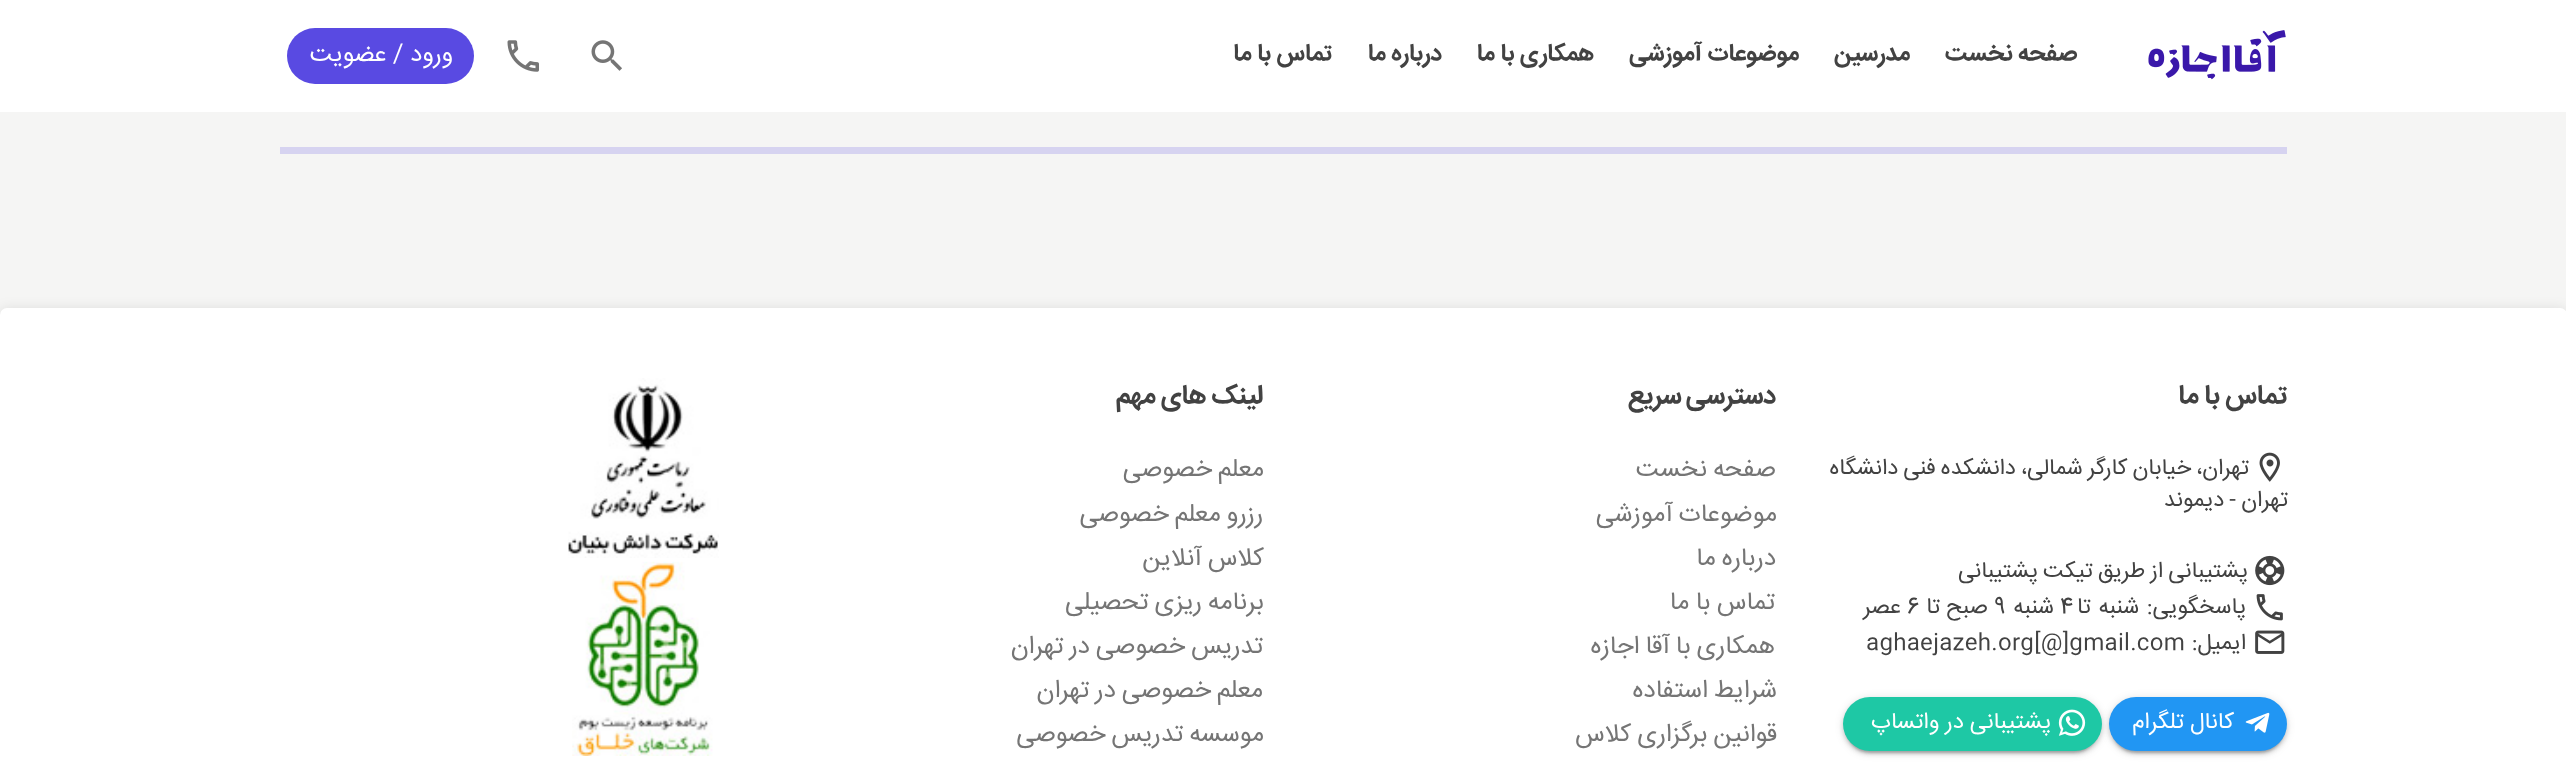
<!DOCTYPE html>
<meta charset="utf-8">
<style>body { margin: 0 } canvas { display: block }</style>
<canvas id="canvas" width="2566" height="777"></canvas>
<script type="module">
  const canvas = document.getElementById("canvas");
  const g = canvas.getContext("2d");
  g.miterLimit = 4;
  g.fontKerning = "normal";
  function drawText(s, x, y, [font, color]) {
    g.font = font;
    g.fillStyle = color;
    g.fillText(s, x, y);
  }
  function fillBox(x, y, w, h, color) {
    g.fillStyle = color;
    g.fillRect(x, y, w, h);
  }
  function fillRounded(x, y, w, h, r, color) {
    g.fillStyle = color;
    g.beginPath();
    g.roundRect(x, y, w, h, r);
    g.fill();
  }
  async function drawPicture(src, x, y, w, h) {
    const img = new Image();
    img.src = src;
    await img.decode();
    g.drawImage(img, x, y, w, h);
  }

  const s1 = ["bold 23.75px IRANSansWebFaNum", "#424242"];
  const s2 = ["24.5px IRANSansWebFaNum", "#FFFFFF"];
  const s3 = ["bold 26.5px IRANSansWebFaNum", "#424242"];
  const s4 = ["22.4px IRANSansWebFaNum", "#424242"];
  const s5 = ["22.75px IRANSansWebFaNum", "#FFFFFF"];
  const s6 = ["25.25px IRANSansWebFaNum", "#757575"];

  fillBox(0, 0, 2566, 777, "#F5F5F4");
  fillBox(0, 0, 2566, 112, "#FFFFFF");
  await drawPicture("pic1.png", 2148, 30, 138, 50);
  g.direction = "rtl";
  drawText("صفحه نخست", 2077, 60, s1);
  drawText("مدرسین", 1910, 60, s1);
  drawText("موضوعات آموزشی", 1799, 60, s1);
  drawText("همکاری با ما", 1594, 60, s1);
  drawText("درباره ما", 1442, 60, s1);
  drawText("تماس با ما", 1332, 60, s1);
  await drawPicture("pic2.png", 591, 40, 31, 31);
  await drawPicture("pic3.png", 507, 40, 32, 32);
  fillRounded(287, 28, 187, 56, 28, "#594AE2");
  g.letterSpacing = "0.25px";
  g.wordSpacing = "-1px";
  drawText("ورود / عضویت", 453, 61, s2);
  fillBox(280, 147, 2007, 7, "#D6D3F0");
  g.fillStyle = "rgba(0, 0, 0, 0.12)";
  g.filter = "blur(7px)";
  g.beginPath();
  g.roundRect(0, 310, 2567, 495, 7);
  g.fill();
  g.filter = "none";
  fillRounded(0, 308, 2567, 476, 7, "#FFFFFF");
  drawText("تماس با ما", 2287, 403, s3);
  await drawPicture("pic4.png", 2259, 452, 21, 30);
  g.wordSpacing = "-1.5px";
  drawText("تهران، خیابان کارگر شمالی، دانشکده فنی دانشگاه", 2249, 474, s4);
  drawText("تهران - ديموند", 2288, 506, s4);
  await drawPicture("pic5.png", 2255, 555, 30, 31);
  drawText("پشتیبانی از طریق تیکت پشتیبانی", 2248, 577, s4);
  await drawPicture("pic6.png", 2256, 594, 27, 27);
  g.wordSpacing = "1px";
  drawText("پاسخگویی: شنبه تا", 2246, 613, s4);
  g.wordSpacing = "0px";
  g.direction = "ltr";
  drawText("4", 2060, 613, s4);
  g.direction = "rtl";
  drawText("شنبه", 2054, 613, s4);
  g.direction = "ltr";
  drawText("9", 1994, 613, s4);
  g.wordSpacing = "-1px";
  g.direction = "rtl";
  drawText("صبح تا", 1988, 613, s4);
  g.wordSpacing = "0px";
  g.direction = "ltr";
  drawText("6", 1907, 613, s4);
  g.direction = "rtl";
  drawText("عصر", 1901, 613, s4);
  await drawPicture("pic7.png", 2255, 630, 30, 24);
  drawText("ایمیل:", 2246, 649, s4);
  g.direction = "ltr";
  drawText("aghaejazeh.org[@]gmail.com", 1866, 649, s4);
  g.fillStyle = "rgba(0, 0, 0, 0.12)";
  g.filter = "blur(4.5px)";
  g.beginPath();
  g.roundRect(2109, 698, 178, 55, 27.5);
  g.fill();
  g.filter = "none";
  g.fillStyle = "rgba(0, 0, 0, 0.14)";
  g.filter = "blur(2px)";
  g.beginPath();
  g.roundRect(2109, 700, 178, 54, 27);
  g.fill();
  g.filter = "none";
  g.fillStyle = "rgba(0, 0, 0, 0.2)";
  g.filter = "blur(1px)";
  g.beginPath();
  g.roundRect(2112, 705, 172, 48, 24);
  g.fill();
  g.filter = "none";
  fillRounded(2109, 697, 178, 54, 27, "#2196F3");
  await drawPicture("pic8.png", 2245, 712, 25, 21);
  g.letterSpacing = "0.6px";
  g.wordSpacing = "-1px";
  g.direction = "rtl";
  drawText("كانال تلگرام", 2234, 728, s5);
  g.fillStyle = "rgba(0, 0, 0, 0.12)";
  g.filter = "blur(4.5px)";
  g.beginPath();
  g.roundRect(1843, 698, 259, 55, 27.5);
  g.fill();
  g.filter = "none";
  g.fillStyle = "rgba(0, 0, 0, 0.14)";
  g.filter = "blur(2px)";
  g.beginPath();
  g.roundRect(1843, 700, 259, 54, 27);
  g.fill();
  g.filter = "none";
  g.fillStyle = "rgba(0, 0, 0, 0.2)";
  g.filter = "blur(1px)";
  g.beginPath();
  g.roundRect(1846, 705, 252, 48, 24);
  g.fill();
  g.filter = "none";
  fillRounded(1843, 697, 259, 54, 27, "#1EC8A5");
  await drawPicture("pic9.png", 2058, 709, 28, 27);
  drawText("پشتیبانی در واتساپ", 2051, 728, s5);
  g.letterSpacing = "0.25px";
  g.wordSpacing = "-2px";
  drawText("دسترسی سریع", 1776, 403, s3);
  g.wordSpacing = "-1.5px";
  drawText("صفحه نخست", 1776, 476, s6);
  drawText("موضوعات آموزشی", 1777, 521, s6);
  drawText("درباره ما", 1776, 565, s6);
  g.wordSpacing = "-1px";
  drawText("تماس با ما", 1775, 609, s6);
  g.wordSpacing = "-1.5px";
  drawText("همکاری با آقا اجازه", 1775, 653, s6);
  drawText("شرایط استفاده", 1777, 697, s6);
  drawText("قوانین برگزاری کلاس", 1777, 741, s6);
  g.wordSpacing = "-1px";
  drawText("لینک های مهم", 1263, 403, s3);
  g.wordSpacing = "-1.5px";
  drawText("معلم خصوصی", 1264, 476, s6);
  drawText("رزرو معلم خصوصی", 1263, 521, s6);
  drawText("کلاس آنلاین", 1264, 565, s6);
  drawText("برنامه ریزی تحصیلی", 1264, 609, s6);
  drawText("تدریس خصوصی در تهران", 1263, 653, s6);
  drawText("معلم خصوصی در تهران", 1263, 697, s6);
  drawText("موسسه تدریس خصوصی", 1264, 741, s6);
  await drawPicture("pic10.png", 568, 378, 151, 180);
  await drawPicture("pic11.png", 572, 561, 141, 195);
</script>
